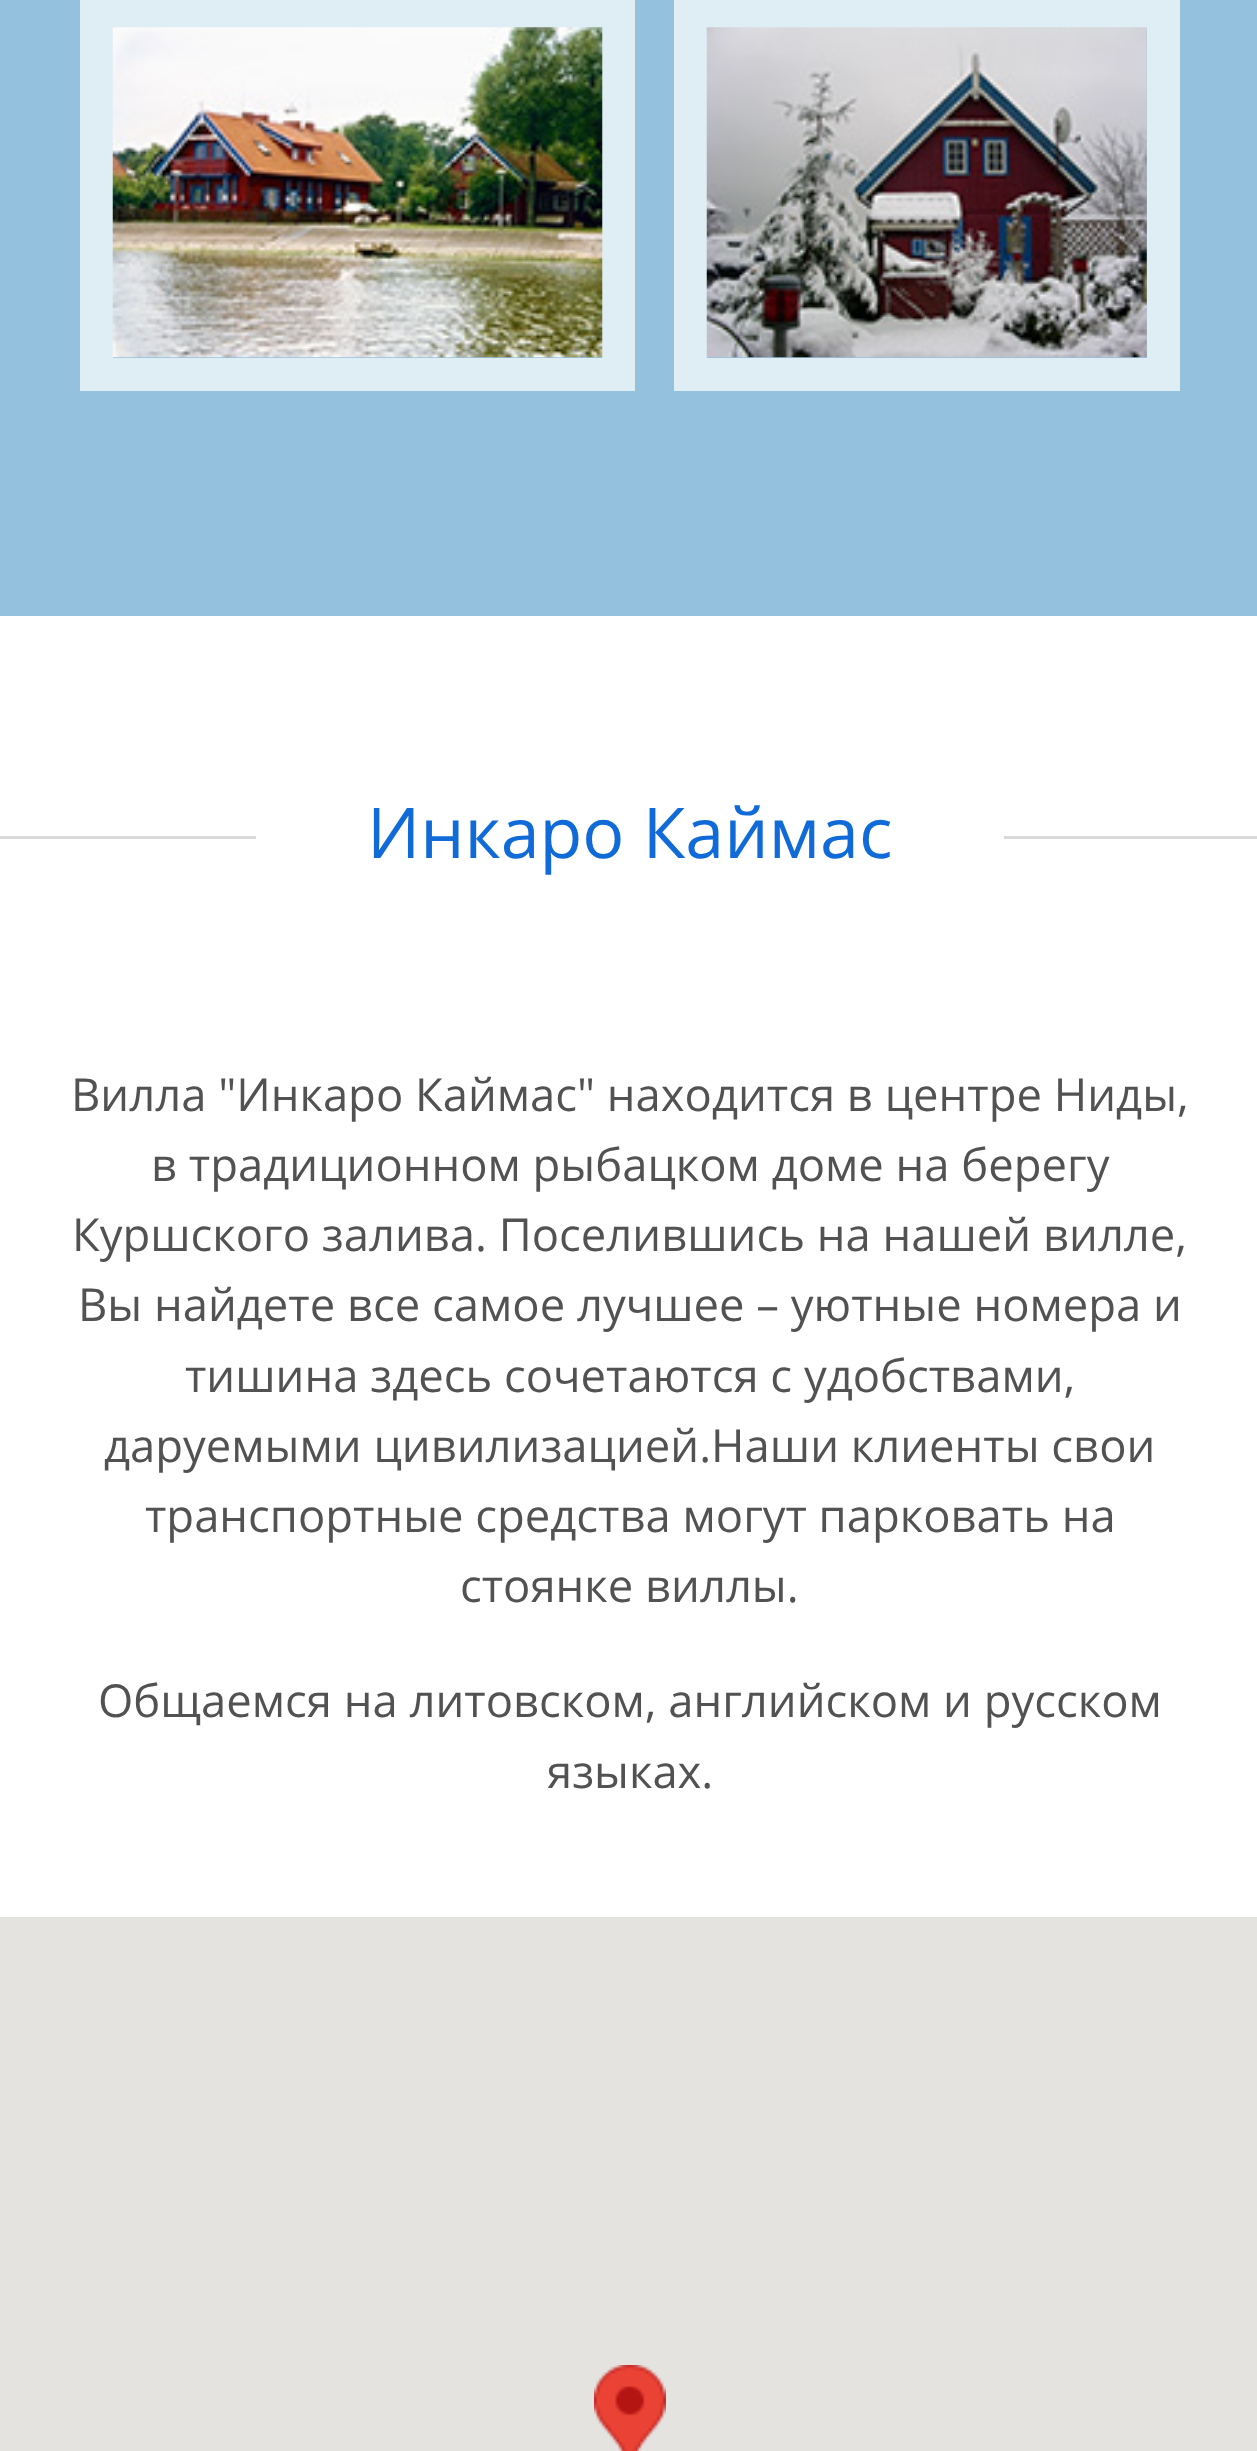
<!DOCTYPE html>
<meta charset="utf-8">
<style>body { margin: 0 } canvas { display: block }</style>
<canvas id="canvas" width="1257" height="2451"></canvas>
<script type="module">
  const canvas = document.getElementById("canvas");
  const g = canvas.getContext("2d");
  g.miterLimit = 4;
  g.fontKerning = "normal";
  function drawText(s, x, y, [font, color]) {
    g.font = font;
    g.fillStyle = color;
    g.fillText(s, x, y);
  }
  function fillBox(x, y, w, h, color) {
    g.fillStyle = color;
    g.fillRect(x, y, w, h);
  }
  async function drawPicture(src, x, y, w, h) {
    const img = new Image();
    img.src = src;
    await img.decode();
    g.drawImage(img, x, y, w, h);
  }

  const s1 = ["70px Open Sans", "#106BD8"];
  const s2 = ["45.4px Open Sans", "#525252"];

  fillBox(0, 0, 1257, 2451, "#FFFFFF");
  fillBox(0, 0, 1257, 616, "#94C1DD");
  g.strokeStyle = "#DFEDF5";
  g.lineWidth = 33;
  g.strokeRect(96.5, 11.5, 522, 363);
  g.strokeRect(690.5, 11.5, 473, 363);
  await drawPicture("pic1.png", 112, 27, 491, 331);
  await drawPicture("pic2.png", 706, 27, 441, 331);
  fillBox(0, 836, 1257, 3, "#D9D9D9");
  fillBox(256, 836, 748, 3, "#FFFFFF");
  drawText("Инкаро Каймас", 367, 858, s1);
  drawText("Вилла \"Инкаро Каймас\" находится в центре Ниды,", 71, 1111, s2);
  drawText("в традиционном рыбацком доме на берегу", 151, 1181, s2);
  drawText("Куршского залива. Поселившись на нашей вилле,", 72, 1251, s2);
  drawText("Вы найдете все самое лучшее – уютные номера и", 78, 1321, s2);
  drawText("тишина здесь сочетаются с удобствами,", 185, 1392, s2);
  drawText("даруемыми цивилизацией.Наши клиенты свои", 104, 1462, s2);
  drawText("транспортные средства могут парковать на", 145, 1532, s2);
  drawText("стоянке виллы.", 460, 1602, s2);
  drawText("Общаемся на литовском, английском и русском", 98, 1717, s2);
  drawText("языках.", 547, 1788, s2);
  fillBox(0, 1917, 1257, 534, "#E5E3DF");
  await drawPicture("pic3.png", 594, 2365, 72, 86);
</script>
